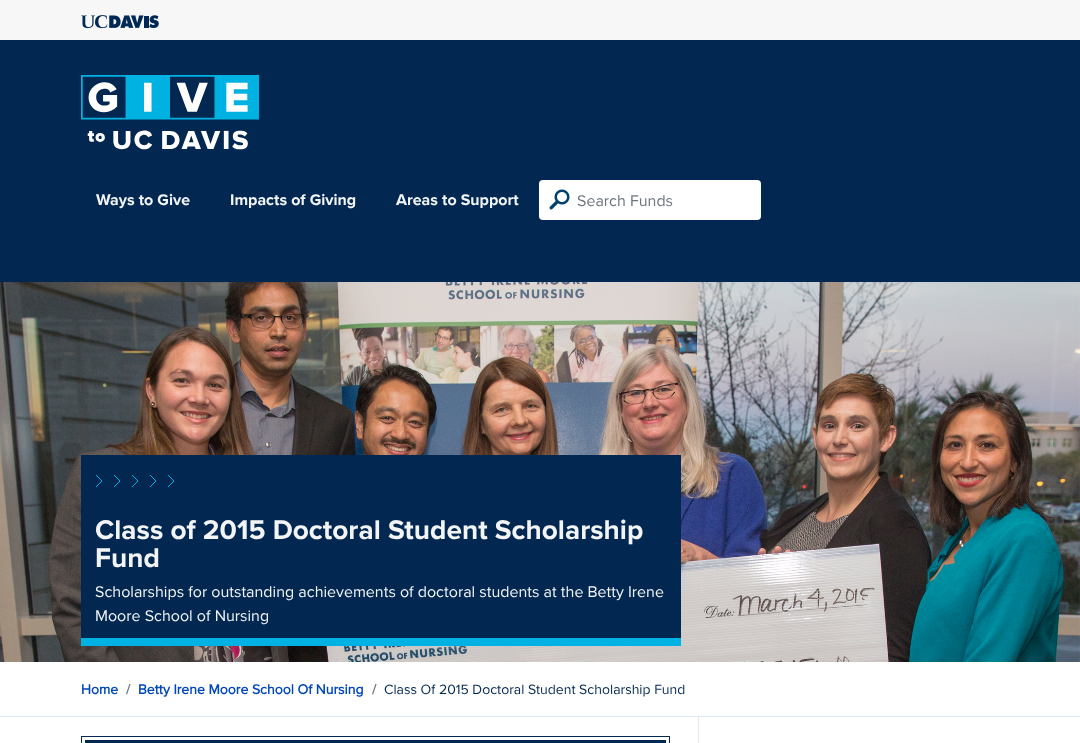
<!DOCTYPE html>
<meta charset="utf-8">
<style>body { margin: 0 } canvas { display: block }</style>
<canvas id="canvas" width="1080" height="743"></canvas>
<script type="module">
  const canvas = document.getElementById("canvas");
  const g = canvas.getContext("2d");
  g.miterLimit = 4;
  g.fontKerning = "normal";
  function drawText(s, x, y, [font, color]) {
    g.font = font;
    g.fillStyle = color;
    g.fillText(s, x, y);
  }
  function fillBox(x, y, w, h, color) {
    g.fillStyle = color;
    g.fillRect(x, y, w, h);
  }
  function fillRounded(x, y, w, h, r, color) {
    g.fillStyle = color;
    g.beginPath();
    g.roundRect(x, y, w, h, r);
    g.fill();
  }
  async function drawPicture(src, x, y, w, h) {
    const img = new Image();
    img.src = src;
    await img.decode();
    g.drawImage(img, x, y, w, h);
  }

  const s1 = ["bold 16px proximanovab", "#F2F4F6"];
  const s2 = ["16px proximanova", "#6C757D"];
  const s3 = ["bold 28px proximanovab", "#F2F4F6"];
  const s4 = ["16px proximanova", "#F2F4F6"];
  const s5 = ["bold 14px proximanova", "#0047BA"];
  const s6 = ["bold 14px proximanova", "#6C757D"];
  const s7 = ["14px proximanova", "#022851"];

  fillBox(0, 0, 1080, 743, "#FFFFFF");
  fillBox(0, 0, 1080, 40, "#F7F7F7");
  await drawPicture("pic1.png", 81, 15, 78, 14);
  fillBox(0, 40, 1080, 242, "#022851");
  await drawPicture("pic2.png", 81, 75, 178, 75);
  drawText("Ways to Give", 96, 205, s1);
  drawText("Impacts of Giving", 230, 205, s1);
  drawText("Areas to Support", 396, 205, s1);
  fillRounded(539, 180, 222, 40, 4, "#FFFFFF");
  await drawPicture("pic3.png", 549, 189, 21, 21);
  drawText("Search Funds", 577, 206, s2);
  await drawPicture("pic4.png", 0, 282, 1080, 380);
  fillBox(81, 455, 600, 183, "#022851");
  fillBox(81, 638, 600, 8, "#00B2E3");
  g.beginPath();
  g.moveTo(114, 487);
  g.lineTo(120, 481);
  g.lineTo(114, 475);
  g.moveTo(96, 487);
  g.lineTo(102, 481);
  g.lineTo(96, 475);
  g.moveTo(132, 487);
  g.lineTo(138, 481);
  g.lineTo(132, 475);
  g.strokeStyle = "#00B2E3";
  g.stroke();
  g.beginPath();
  g.moveTo(168, 487);
  g.lineTo(174, 481);
  g.lineTo(168, 475);
  g.moveTo(150, 487);
  g.lineTo(156, 481);
  g.lineTo(150, 475);
  g.stroke();
  drawText("Class of 2015 Doctoral Student Scholarship", 95, 539, s3);
  drawText("Fund", 95, 567, s3);
  drawText("Scholarships for outstanding achievements of doctoral students at the Betty Irene", 95, 597, s4);
  drawText("Moore School of Nursing", 95, 621, s4);
  fillBox(0, 716, 1080, 1, "#E1E9F0");
  drawText("Home", 81, 694, s5);
  drawText("/", 126, 694, s6);
  drawText("Betty Irene Moore School Of Nursing", 138, 694, s5);
  drawText("/", 372, 694, s6);
  drawText("Class Of 2015 Doctoral Student Scholarship Fund", 384, 694, s7);
  g.strokeStyle = "#022851";
  g.strokeRect(81.5, 736.5, 588, 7);
  fillBox(85, 740, 581, 3, "#022851");
  fillBox(698, 717, 1, 26, "#E1E9F0");
</script>
